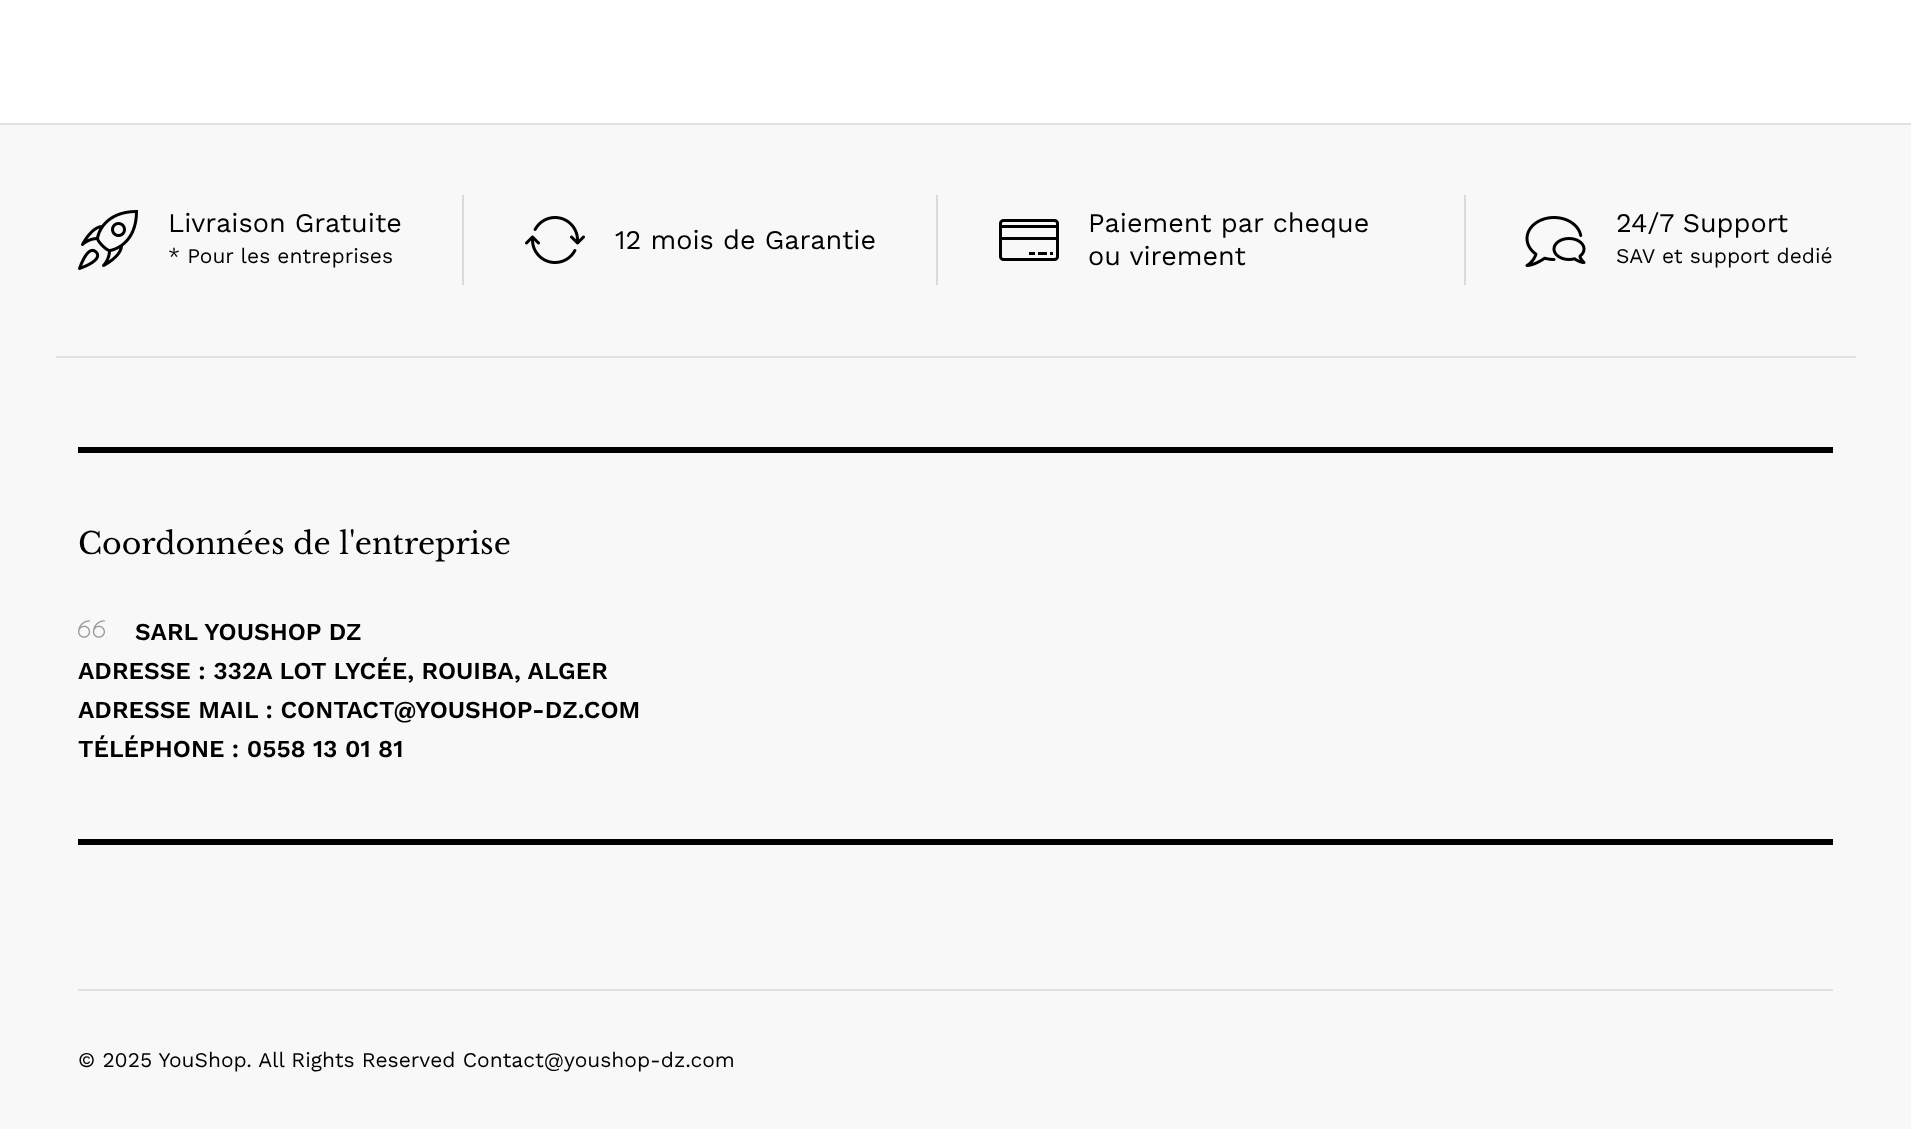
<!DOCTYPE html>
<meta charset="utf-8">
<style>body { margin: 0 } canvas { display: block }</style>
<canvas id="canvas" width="1911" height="1129"></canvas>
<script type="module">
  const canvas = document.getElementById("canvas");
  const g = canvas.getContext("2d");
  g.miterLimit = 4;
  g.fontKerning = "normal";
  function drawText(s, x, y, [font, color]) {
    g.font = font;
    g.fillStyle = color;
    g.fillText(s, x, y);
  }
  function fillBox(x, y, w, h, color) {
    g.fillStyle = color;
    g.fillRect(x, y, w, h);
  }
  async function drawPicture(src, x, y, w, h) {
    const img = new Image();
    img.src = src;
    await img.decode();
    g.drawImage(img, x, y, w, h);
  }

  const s1 = ["27px Work Sans", "#000000"];
  const s2 = ["21px Work Sans", "#000000"];
  const s3 = ["30px Libre Baskerville", "#000000"];
  const s4 = ["600 24.4px Work Sans", "#000000"];

  fillBox(0, 0, 1911, 1129, "#FFFFFF");
  fillBox(0, 123, 1911, 2, "#E1E1E1");
  fillBox(0, 125, 1911, 1004, "#F8F8F8");
  fillBox(56, 356, 1800, 2, "#E1E1E1");
  await drawPicture("pic1.png", 78, 210, 60, 60);
  drawText("Livraison Gratuite", 168, 232, s1);
  drawText("* Pour les entreprises", 168, 263, s2);
  fillBox(462, 195, 2, 90, "#DADADA");
  await drawPicture("pic2.png", 525, 216, 60, 48);
  drawText("12 mois de Garantie", 615, 249, s1);
  fillBox(936, 195, 2, 90, "#DADADA");
  await drawPicture("pic3.png", 999, 219, 60, 42);
  drawText("Paiement par cheque", 1088, 232, s1);
  drawText("ou virement", 1088, 265, s1);
  fillBox(1464, 195, 2, 90, "#DADADA");
  await drawPicture("pic4.png", 1525, 216, 61, 51);
  drawText("24/7 Support", 1616, 232, s1);
  drawText("SAV et support dedié", 1616, 263, s2);
  fillBox(78, 989, 1755, 2, "#E1E1E1");
  fillBox(78, 447, 1755, 6, "#000000");
  fillBox(78, 839, 1755, 6, "#000000");
  drawText("Coordonnées de l'entreprise", 78, 554, s3);
  await drawPicture("pic5.png", 78, 620, 27, 18);
  drawText("SARL YOUSHOP DZ", 135, 640, s4);
  drawText("ADRESSE : 332A LOT LYCÉE, ROUIBA, ALGER", 78, 679, s4);
  drawText("ADRESSE MAIL : CONTACT@YOUSHOP-DZ.COM", 78, 718, s4);
  drawText("TÉLÉPHONE : 0558 13 01 81", 78, 757, s4);
  drawText("© 2025 YouShop. All Rights Reserved Contact@youshop-dz.com", 78, 1067, s2);
</script>
